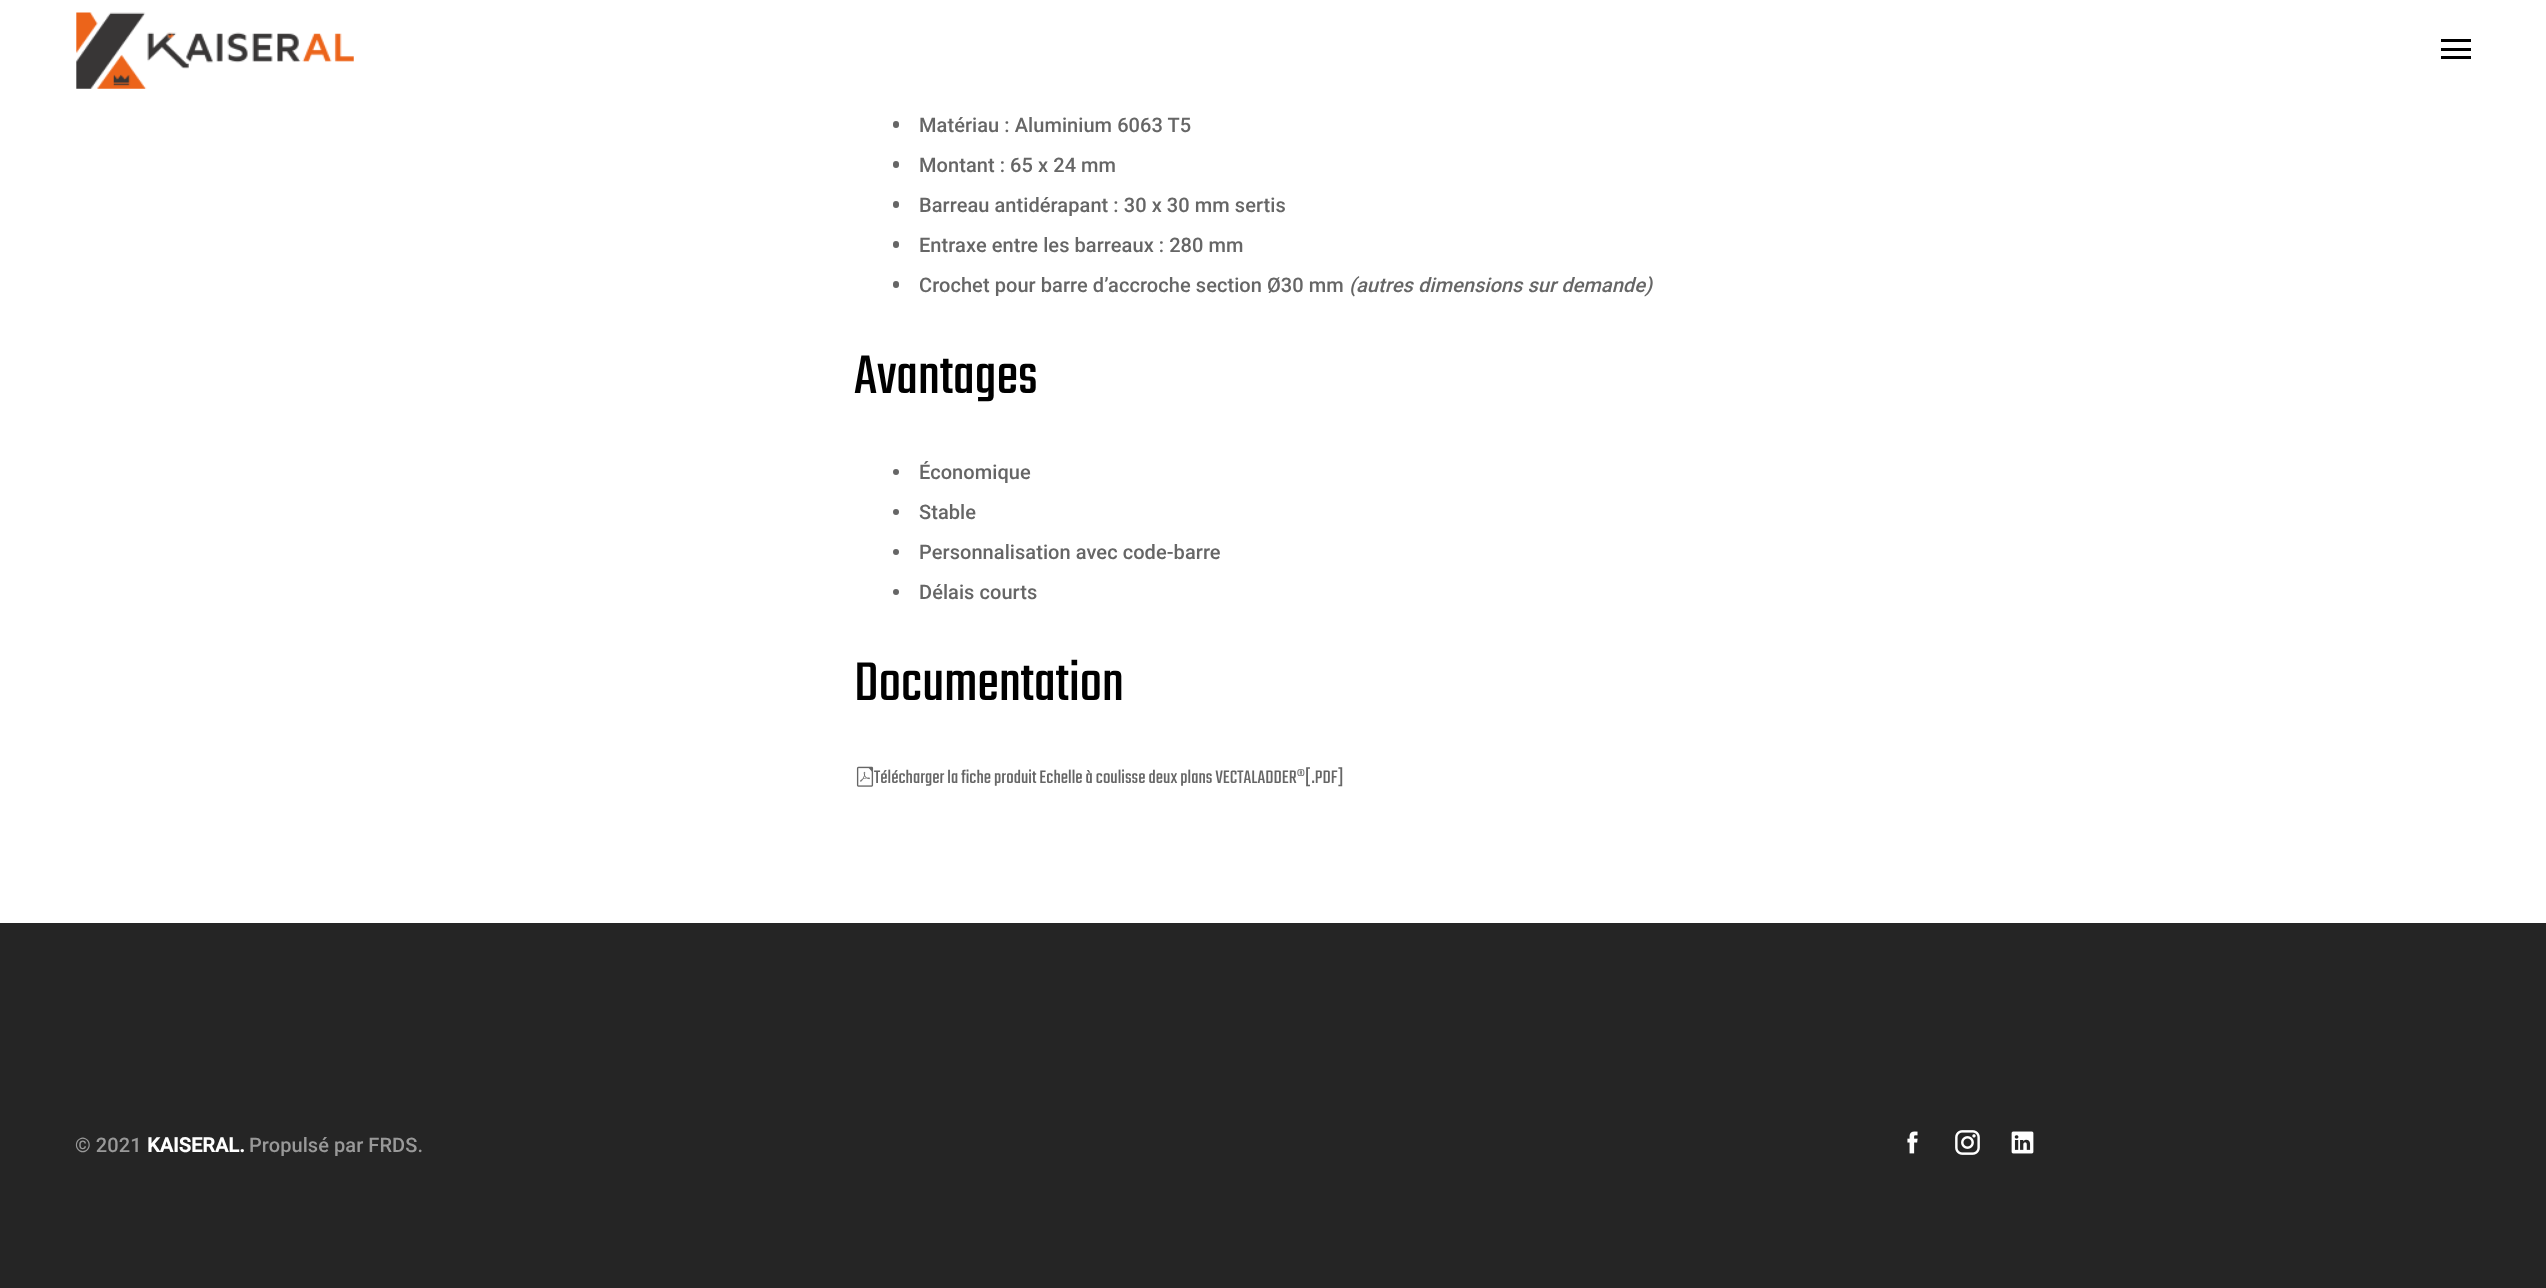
<!DOCTYPE html>
<meta charset="utf-8">
<style>body { margin: 0 } canvas { display: block }</style>
<canvas id="canvas" width="2546" height="1288"></canvas>
<script type="module">
  const canvas = document.getElementById("canvas");
  const g = canvas.getContext("2d");
  g.miterLimit = 4;
  g.fontKerning = "normal";
  function drawText(s, x, y, [font, color]) {
    g.font = font;
    g.fillStyle = color;
    g.fillText(s, x, y);
  }
  function fillBox(x, y, w, h, color) {
    g.fillStyle = color;
    g.fillRect(x, y, w, h);
  }
  function fillRounded(x, y, w, h, r, color) {
    g.fillStyle = color;
    g.beginPath();
    g.roundRect(x, y, w, h, r);
    g.fill();
  }
  async function drawPicture(src, x, y, w, h) {
    const img = new Image();
    img.src = src;
    await img.decode();
    g.drawImage(img, x, y, w, h);
  }

  const s1 = ["500 20px Roboto", "#666666"];
  const s2 = ["italic 500 20px Roboto", "#666666"];
  const s3 = ["60px Teko", "#000000"];
  const s4 = ["20px Teko", "#666666"];
  const s5 = ["500 20px Roboto", "#999999"];
  const s6 = ["bold 20px Roboto", "#FFFFFF"];

  fillBox(0, 0, 2546, 1288, "#252525");
  fillBox(0, 0, 2546, 923, "#FFFFFF");
  await drawPicture("pic1.png", 76, 12, 278, 77);
  fillBox(2441, 39, 30, 3, "#000000");
  fillBox(2441, 48, 30, 3, "#000000");
  fillBox(2441, 56, 30, 3, "#000000");
  fillRounded(893, 121, 6, 7, 3, "#666666");
  g.letterSpacing = "0.07px";
  drawText("Matériau : Aluminium 6063 T5", 919, 132, s1);
  fillRounded(893, 161, 6, 7, 3, "#666666");
  drawText("Montant : 65 x 24 mm", 919, 172, s1);
  fillRounded(893, 201, 6, 7, 3, "#666666");
  drawText("Barreau antidérapant : 30 x 30 mm sertis", 919, 212, s1);
  fillRounded(893, 241, 6, 7, 3, "#666666");
  drawText("Entraxe entre les barreaux : 280 mm", 919, 252, s1);
  fillRounded(893, 281, 6, 7, 3, "#666666");
  drawText("Crochet pour barre d’accroche section Ø30 mm", 919, 292, s1);
  drawText("(autres dimensions sur demande)", 1349, 292, s2);
  drawText("Avantages", 854, 393, s3);
  g.fillStyle = "#666666";
  g.beginPath();
  g.arc(896, 472, 3, 0, Math.PI * 2);
  g.fill();
  drawText("Économique", 919, 479, s1);
  g.beginPath();
  g.arc(896, 512, 3, 0, Math.PI * 2);
  g.fill();
  drawText("Stable", 919, 519, s1);
  g.beginPath();
  g.arc(896, 552, 3, 0, Math.PI * 2);
  g.fill();
  drawText("Personnalisation avec code-barre", 919, 559, s1);
  g.beginPath();
  g.arc(896, 592, 3, 0, Math.PI * 2);
  g.fill();
  drawText("Délais courts", 919, 599, s1);
  drawText("Documentation", 854, 700, s3);
  await drawPicture("pic2.png", 856, 766, 18, 21);
  drawText("Télécharger la fiche produit Echelle à coulisse deux plans VECTALADDER®[.PDF]", 874, 783, s4);
  drawText("© 2021", 75, 1152, s5);
  drawText("KAISERAL.", 147, 1152, s6);
  drawText("Propulsé par FRDS.", 249, 1152, s5);
  await drawPicture("pic3.png", 1907, 1131, 11, 23);
  await drawPicture("pic4.png", 1955, 1130, 25, 25);
  await drawPicture("pic5.png", 2011, 1131, 23, 23);
</script>
